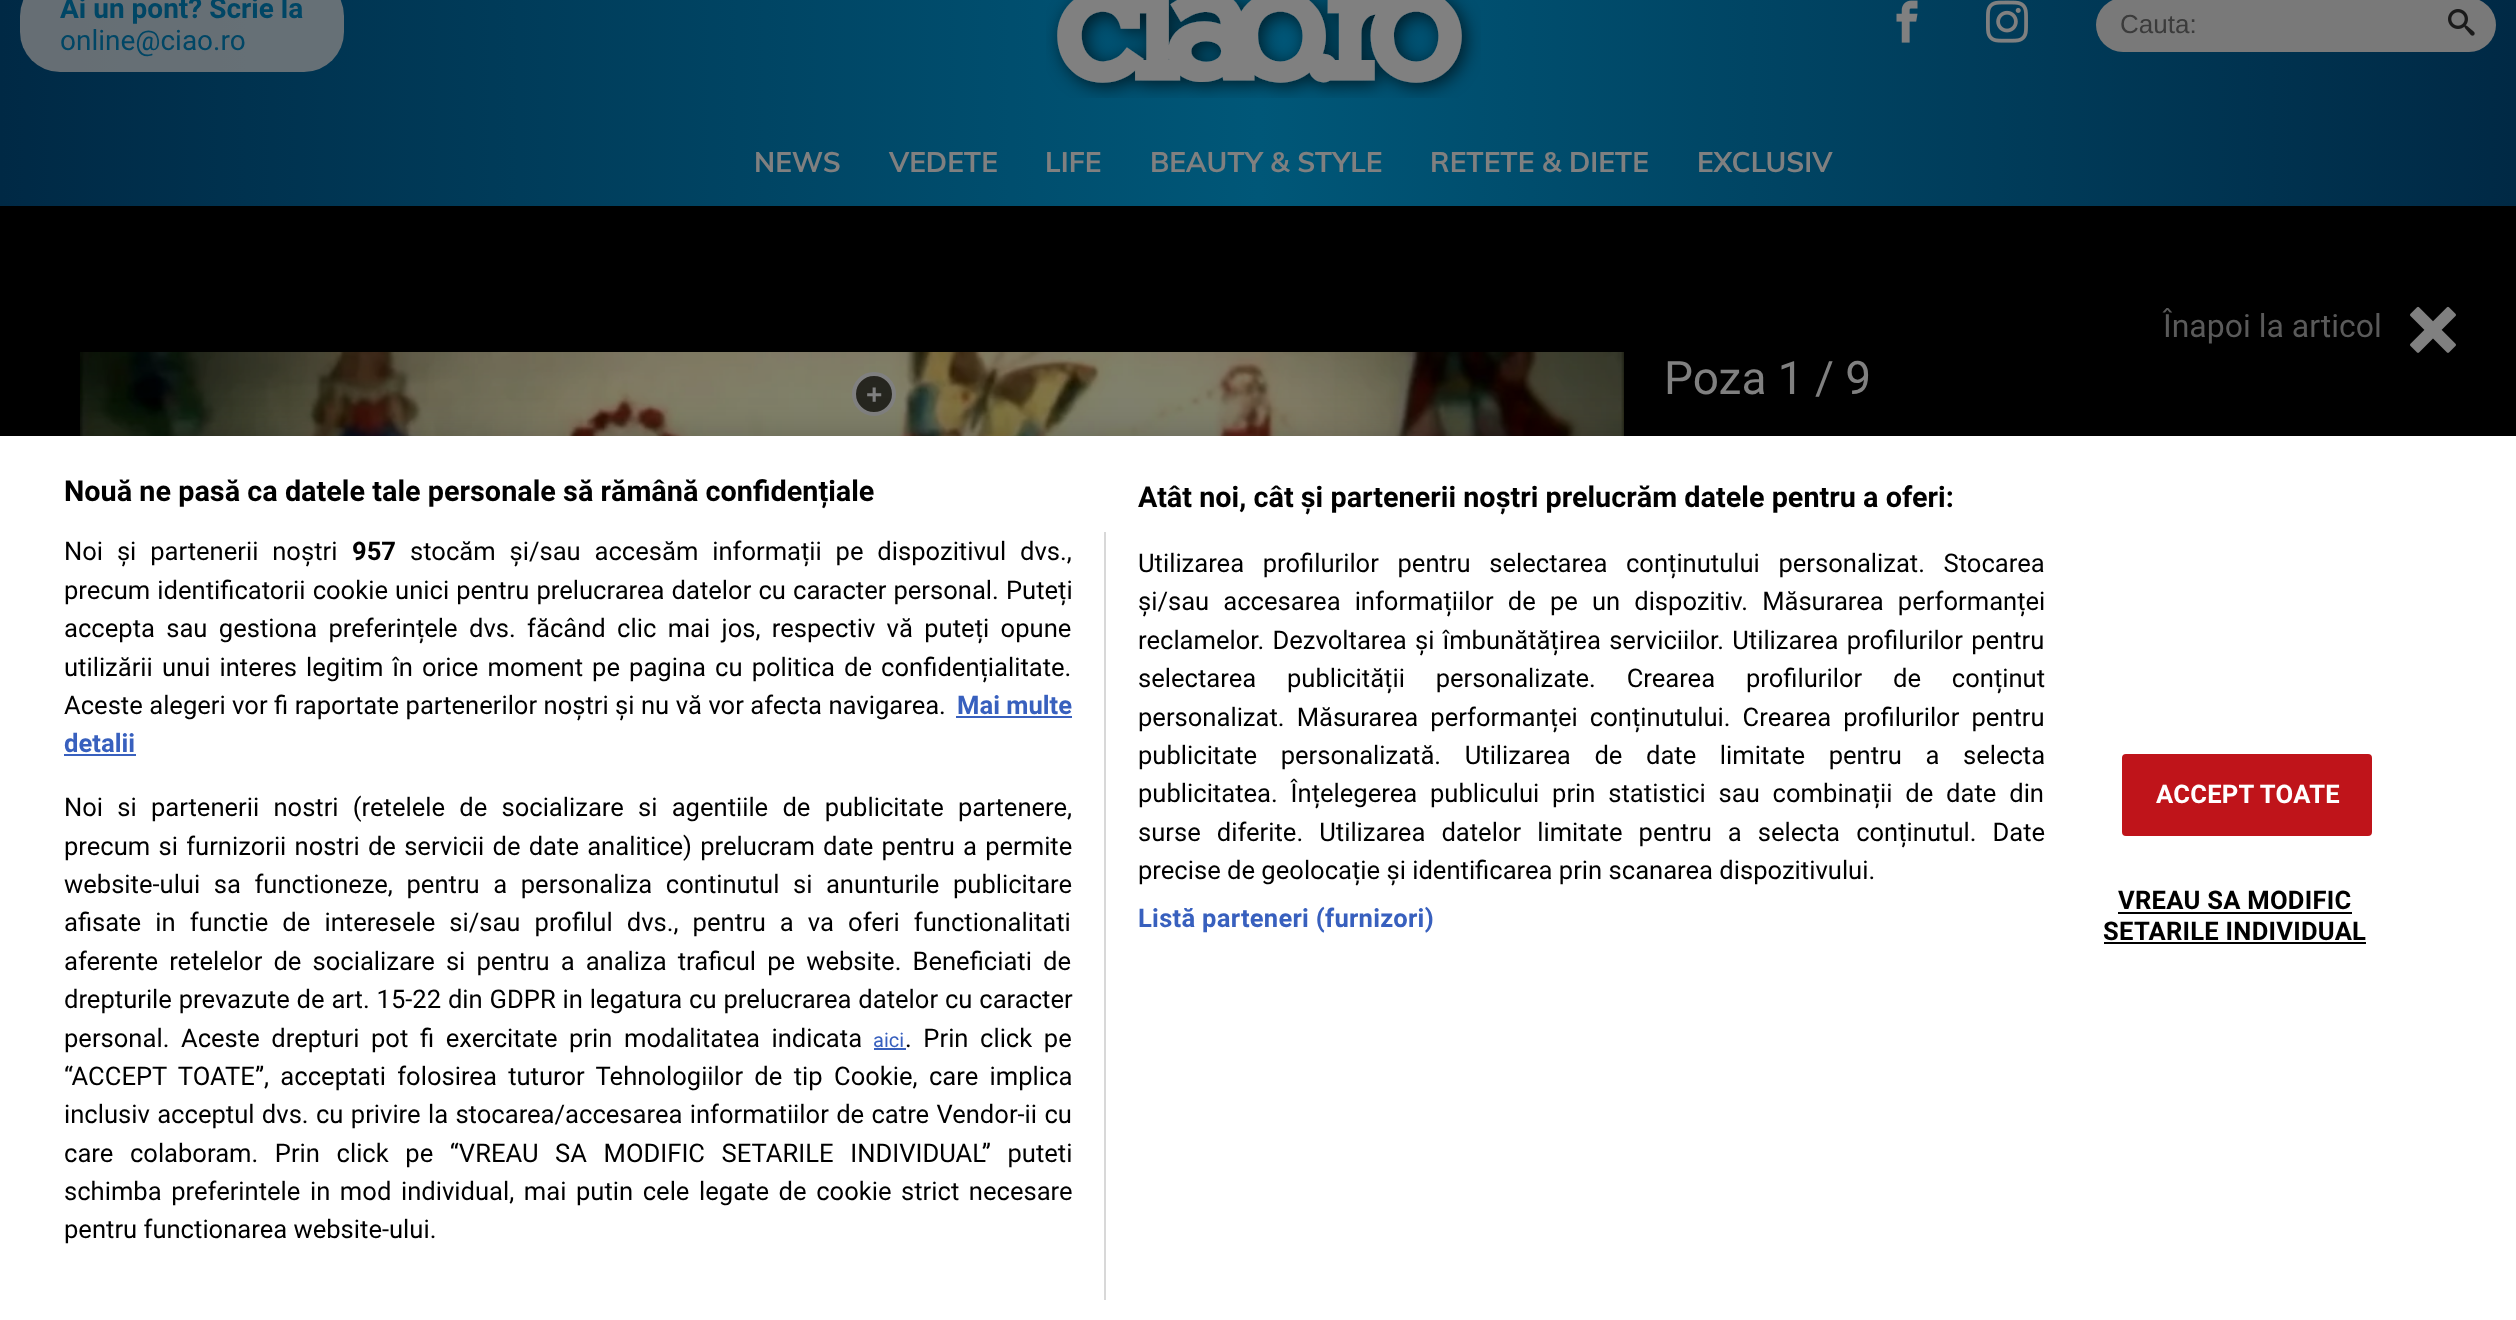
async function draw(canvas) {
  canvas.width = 2516;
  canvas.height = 1320;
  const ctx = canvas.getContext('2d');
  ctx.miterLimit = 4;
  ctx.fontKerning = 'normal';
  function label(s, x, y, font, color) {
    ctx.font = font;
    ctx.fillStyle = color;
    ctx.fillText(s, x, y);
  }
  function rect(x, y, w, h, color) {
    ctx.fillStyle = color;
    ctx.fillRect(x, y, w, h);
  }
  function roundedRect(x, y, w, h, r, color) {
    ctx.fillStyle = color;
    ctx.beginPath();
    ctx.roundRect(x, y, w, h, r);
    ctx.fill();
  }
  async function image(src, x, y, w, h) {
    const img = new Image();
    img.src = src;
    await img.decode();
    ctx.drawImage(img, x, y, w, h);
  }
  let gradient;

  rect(0, 0, 2516, 1320, '#fff');
  gradient = ctx.createLinearGradient(0, 65, 2516, 65);
  gradient.addColorStop(0, '#002945');
  gradient.addColorStop(0.5, '#005778');
  gradient.addColorStop(1, '#002945');
  ctx.fillStyle = gradient;
  ctx.fillRect(0, 0, 2516, 206);
  roundedRect(20, -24, 324, 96, 40, '#808080cc');
  label('Ai un pont? Scrie la', 60, 18, 'bold 28px Roboto', '#004665');
  label('online@ciao.ro', 60, 50, '28px Roboto', '#004665');
  await image('assets/img1.png', 1896, 0, 22, 43);
  await image('assets/img2.png', 1986, 0, 42, 43);
  roundedRect(2096, -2, 400, 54, 27, '#797979');
  label('Cauta:', 2120, 33, '26px Liberation Sans', '#3b3b3b');
  await image('assets/img3.png', 2448, 9, 27, 27);
  await image('assets/img4.png', 1046, 0, 435, 98);
  label('NEWS', 754, 172, 'bold 28px Muli', '#808080');
  label('VEDETE', 889, 172, 'bold 28px Muli', '#808080');
  label('LIFE', 1045, 172, 'bold 28px Muli', '#808080');
  label('BEAUTY & STYLE', 1150, 172, 'bold 28px Muli', '#808080');
  label('RETETE & DIETE', 1430, 172, 'bold 28px Muli', '#808080');
  label('EXCLUSIV', 1697, 172, 'bold 28px Muli', '#808080');
  rect(0, 206, 2516, 230, '#000');
  label('Înapoi la articol', 2163, 337, '32px Roboto', '#5a5a5a');
  await image('assets/img5.png', 2410, 306, 46, 47);
  await image('assets/img6.png', 80, 352, 1544, 84);
  ctx.fillStyle = '#000000b3';
  ctx.beginPath();
  ctx.arc(874, 394, 20, 0, 2 * Math.PI);
  ctx.fill();
  ctx.strokeStyle = '#808080';
  ctx.lineWidth = 4;
  ctx.stroke();
  label('+', 866, 404, 'bold 28px Liberation Sans', '#808080');
  label('Poza 1 / 9', 1664, 394, '46px Roboto', '#808080');
  ctx.fillStyle = '#00000033';
  ctx.filter = 'blur(18px)';
  ctx.beginPath();
  ctx.rect(0, 436, 2516, 884);
  ctx.fill();
  ctx.filter = 'none';
  rect(0, 436, 2516, 884, '#fff');
  label('Nouă ne pasă ca datele tale personale să rămână confidențiale', 64, 501, 'bold 28.8px Roboto', '#000');
  label('Atât noi, cât și partenerii noștri prelucrăm datele pentru a oferi:', 1138, 507, 'bold 28.8px Roboto', '#000');
  ctx.wordSpacing = '12.25px';
  label('Utilizarea profilurilor pentru selectarea conținutului personalizat. Stocarea', 1138, 572, '25.6px Roboto', '#000');
  ctx.wordSpacing = '7.75px';
  label('și/sau accesarea informațiilor de pe un dispozitiv. Măsurarea performanței', 1138, 610, '25.6px Roboto', '#000');
  ctx.wordSpacing = '2px';
  label('reclamelor. Dezvoltarea și îmbunătățirea serviciilor. Utilizarea profilurilor pentru', 1138, 649, '25.6px Roboto', '#000');
  ctx.wordSpacing = '24.5px';
  label('selectarea publicității personalizate. Crearea profilurilor de conținut', 1138, 687, '25.6px Roboto', '#000');
  ctx.wordSpacing = '5.75px';
  label('personalizat. Măsurarea performanței conținutului. Crearea profilurilor pentru', 1138, 726, '25.6px Roboto', '#000');
  ctx.wordSpacing = '17.25px';
  label('publicitate personalizată. Utilizarea de date limitate pentru a selecta', 1138, 764, '25.6px Roboto', '#000');
  ctx.wordSpacing = '6.5px';
  label('publicitatea. Înțelegerea publicului prin statistici sau combinații de date din', 1138, 802, '25.6px Roboto', '#000');
  ctx.wordSpacing = '9.75px';
  label('surse diferite. Utilizarea datelor limitate pentru a selecta conținutul. Date', 1138, 841, '25.6px Roboto', '#000');
  ctx.wordSpacing = '0px';
  label('precise de geolocație și identificarea prin scanarea dispozitivului.', 1138, 879, '25.6px Roboto', '#000');
  ctx.letterSpacing = '0.25px';
  label('Listă parteneri (furnizori)', 1138, 927, 'bold 25.6px Roboto', '#3860be');
  rect(1104, 532, 2, 768, '#d8d8d8');
  ctx.letterSpacing = '0px';
  ctx.wordSpacing = '7.5px';
  label('Noi și partenerii noștri', 64, 560, '25.6px Roboto', '#000');
  ctx.wordSpacing = '0px';
  label('957', 352, 560, 'bold 25.6px Roboto', '#000');
  ctx.wordSpacing = '7.5px';
  label('stocăm și/sau accesăm informații pe dispozitivul dvs.,', 410, 560, '25.6px Roboto', '#000');
  ctx.wordSpacing = '0.75px';
  label('precum identificatorii cookie unici pentru prelucrarea datelor cu caracter personal. Puteți', 64, 599, '25.6px Roboto', '#000');
  ctx.wordSpacing = '5px';
  label('accepta sau gestiona preferințele dvs. făcând clic mai jos, respectiv vă puteți opune', 64, 637, '25.6px Roboto', '#000');
  ctx.wordSpacing = '2.75px';
  label('utilizării unui interes legitim în orice moment pe pagina cu politica de confidențialitate.', 64, 676, '25.6px Roboto', '#000');
  ctx.wordSpacing = '0.1px';
  label('Aceste alegeri vor fi raportate partenerilor noștri și nu vă vor afecta navigarea.', 64, 714, '25.6px Roboto', '#000');
  ctx.wordSpacing = '0px';
  label('Mai multe', 957, 714, 'bold 25.6px Roboto', '#3860be');
  rect(956, 716, 116, 2, '#3860be');
  label('detalii', 64, 752, 'bold 25.6px Roboto', '#3860be');
  rect(64, 754, 72, 2, '#3860be');
  ctx.wordSpacing = '7.9px';
  label('Noi si partenerii nostri (retelele de socializare si agentiile de publicitate partenere,', 64, 816, '25.6px Roboto', '#000');
  ctx.wordSpacing = '1.9px';
  label('precum si furnizorii nostri de servicii de date analitice) prelucram date pentru a permite', 64, 855, '25.6px Roboto', '#000');
  ctx.wordSpacing = '7.25px';
  label('website-ului sa functioneze, pentru a personaliza continutul si anunturile publicitare', 64, 893, '25.6px Roboto', '#000');
  ctx.wordSpacing = '7.75px';
  label('afisate in functie de interesele si/sau profilul dvs., pentru a va oferi functionalitati', 64, 931, '25.6px Roboto', '#000');
  ctx.wordSpacing = '4.75px';
  label('aferente retelelor de socializare si pentru a analiza traficul pe website. Beneficiati de', 64, 970, '25.6px Roboto', '#000');
  ctx.wordSpacing = '0.5px';
  label('drepturile prevazute de art. 15-22 din GDPR in legatura cu prelucrarea datelor cu caracter', 64, 1008, '25.6px Roboto', '#000');
  ctx.wordSpacing = '5.25px';
  label('personal. Aceste drepturi pot fi exercitate prin modalitatea indicata', 64, 1047, '25.6px Roboto', '#000');
  ctx.wordSpacing = '0px';
  label('aici', 873, 1047, '20px Roboto', '#3860be');
  rect(874, 1048, 32, 2, '#3860be');
  ctx.wordSpacing = '5.25px';
  label('. Prin click pe', 905, 1047, '25.6px Roboto', '#000');
  ctx.wordSpacing = '5px';
  label('“ACCEPT TOATE”, acceptati folosirea tuturor Tehnologiilor de tip Cookie, care implica', 64, 1085, '25.6px Roboto', '#000');
  ctx.wordSpacing = '1px';
  label('inclusiv acceptul dvs. cu privire la stocarea/accesarea informatiilor de catre Vendor-ii cu', 64, 1123, '25.6px Roboto', '#000');
  ctx.wordSpacing = '10.25px';
  label('care colaboram. Prin click pe “VREAU SA MODIFIC SETARILE INDIVIDUAL” puteti', 64, 1162, '25.6px Roboto', '#000');
  ctx.wordSpacing = '3.25px';
  label('schimba preferintele in mod individual, mai putin cele legate de cookie strict necesare', 64, 1200, '25.6px Roboto', '#000');
  ctx.wordSpacing = '0px';
  label('pentru functionarea website-ului.', 64, 1238, '25.6px Roboto', '#000');
  ctx.fillStyle = '#bf141a';
  ctx.beginPath();
  ctx.roundRect(2123, 755, 248, 80, 3);
  ctx.fill();
  ctx.strokeStyle = '#bf141a';
  ctx.lineWidth = 2;
  ctx.stroke();
  ctx.letterSpacing = '0.25px';
  label('ACCEPT TOATE', 2156, 803, 'bold 25.6px Roboto', '#fff');
  label('VREAU SA MODIFIC', 2118, 909, 'bold 25.6px Roboto', '#000');
  rect(2118, 912, 234, 2, '#000');
  label('SETARILE INDIVIDUAL', 2103, 940, 'bold 25.6px Roboto', '#000');
  rect(2104, 942, 262, 2, '#000');
}

draw(document.querySelector('canvas'));
